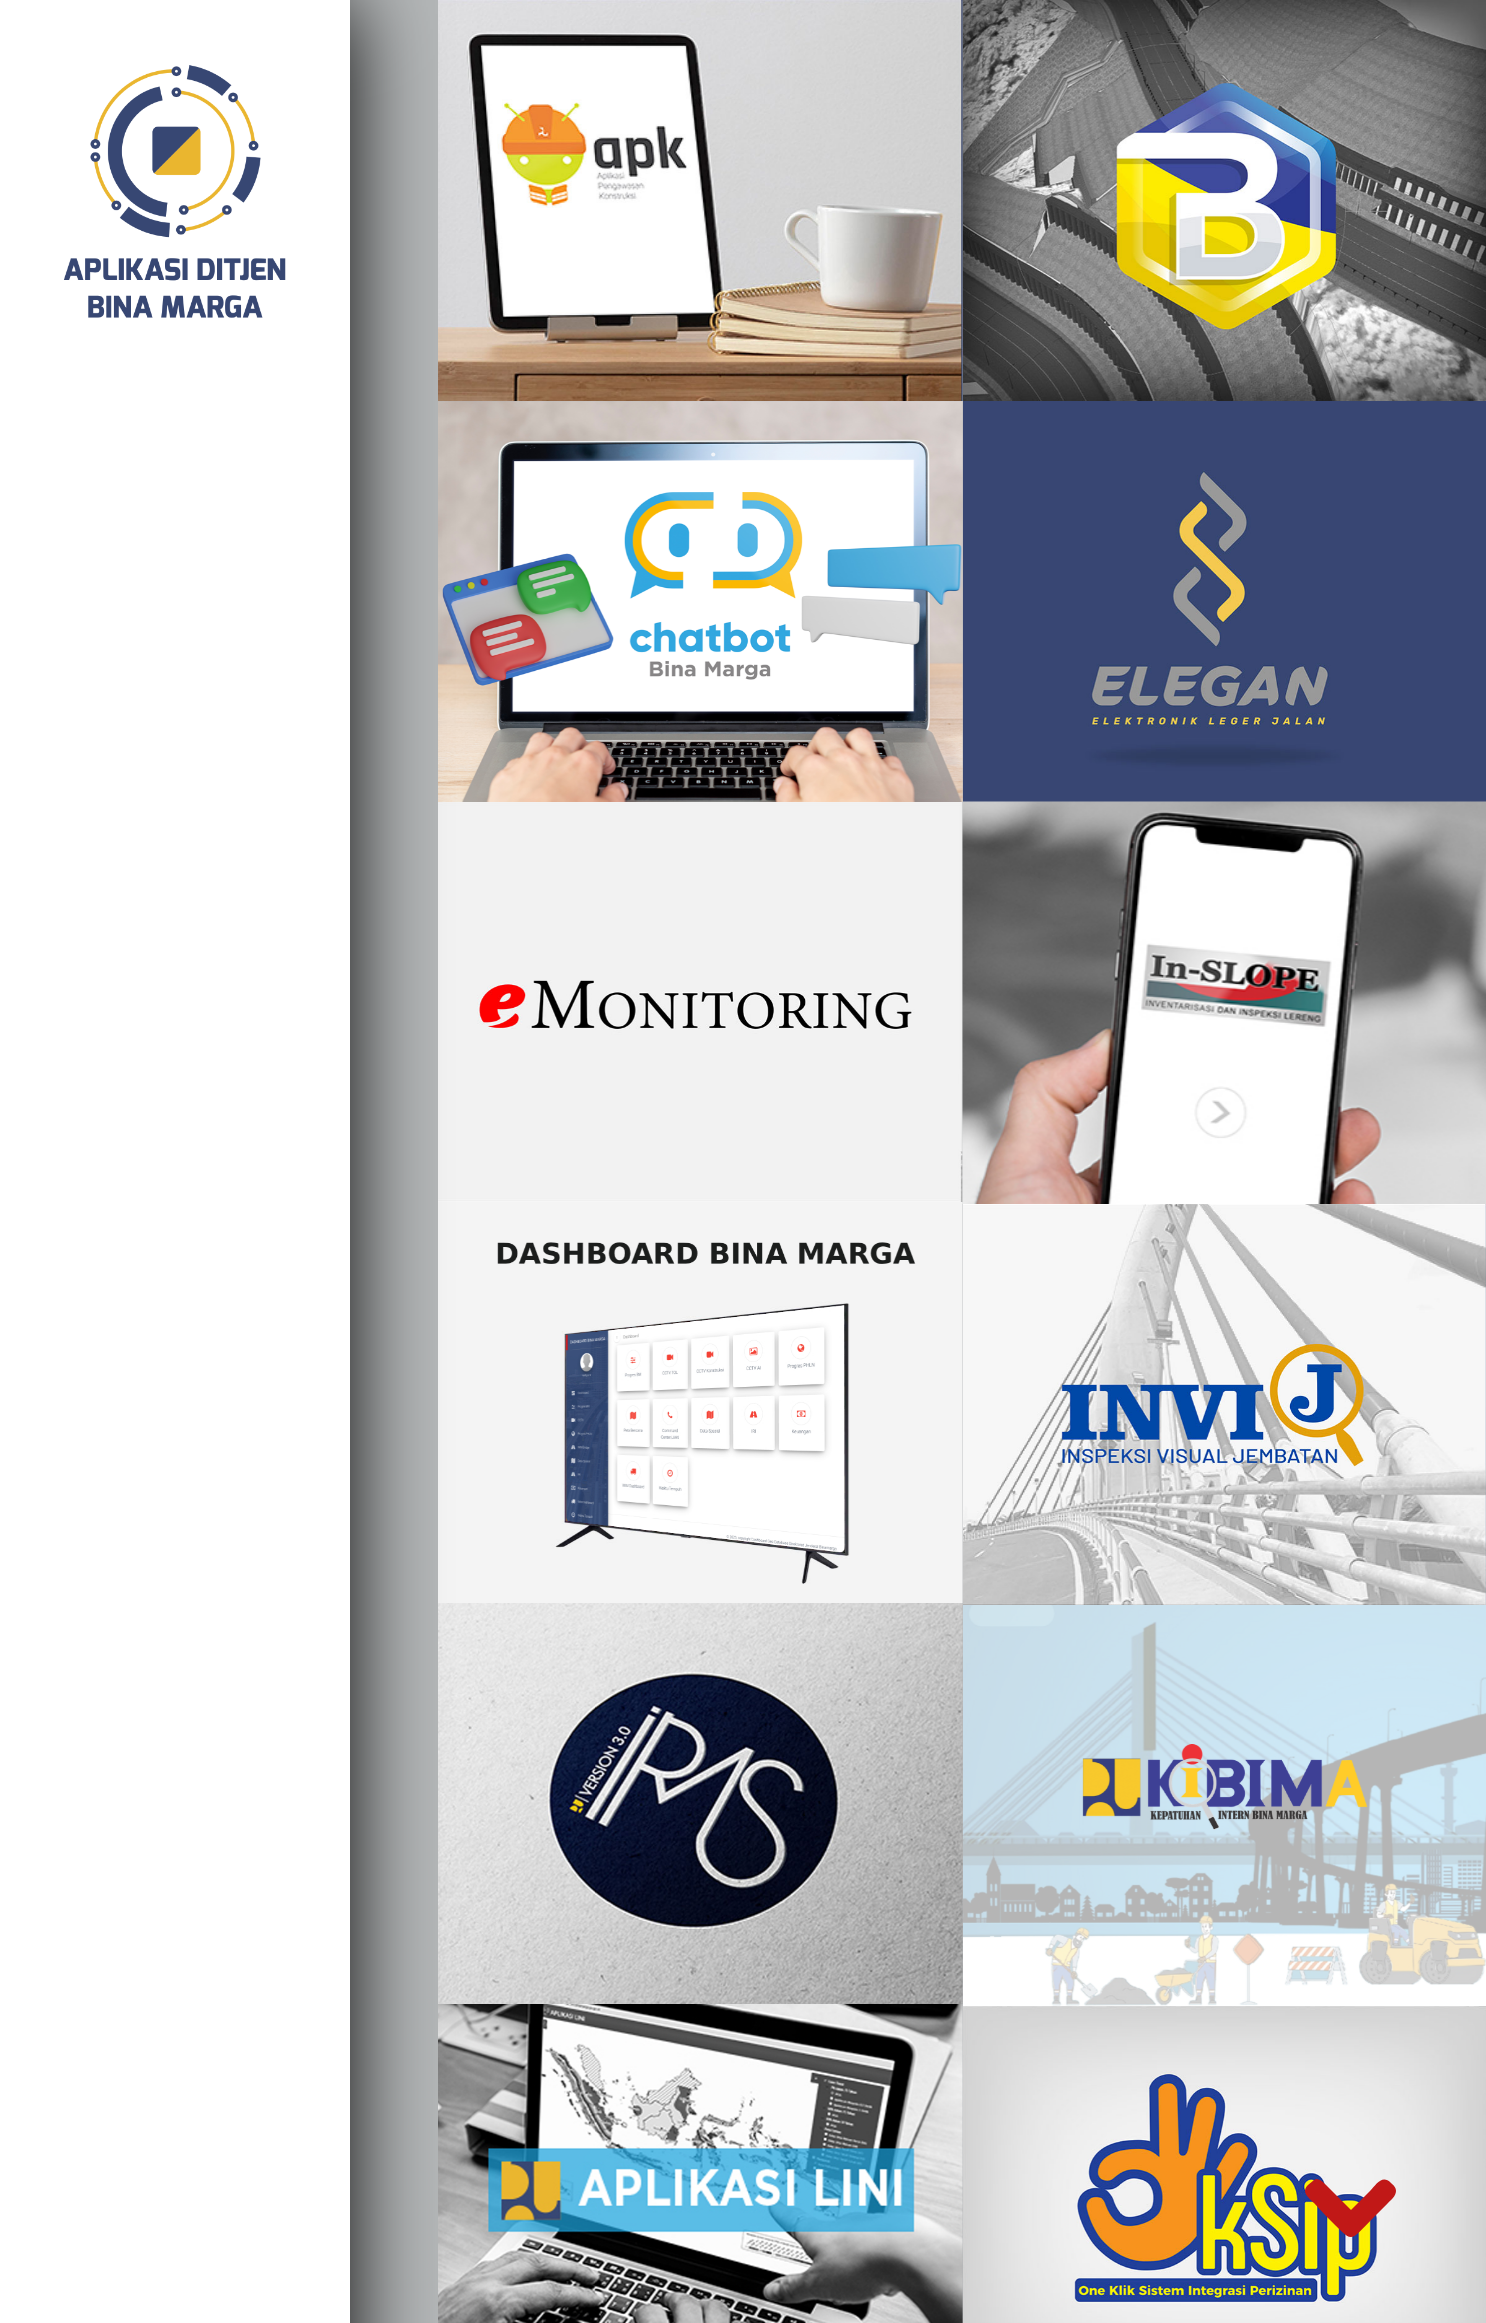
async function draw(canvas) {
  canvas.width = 1486;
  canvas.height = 2323;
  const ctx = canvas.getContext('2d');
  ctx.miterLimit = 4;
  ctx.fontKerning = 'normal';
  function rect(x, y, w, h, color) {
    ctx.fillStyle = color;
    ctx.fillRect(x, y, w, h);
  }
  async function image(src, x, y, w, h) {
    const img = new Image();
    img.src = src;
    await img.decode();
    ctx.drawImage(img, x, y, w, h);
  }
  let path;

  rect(0, 0, 1486, 2323, '#b4b7b8');
  await image('assets/img2.png', 438, 0, 525, 401);
  await image('assets/img4.png', 438, 401, 525, 401);
  await image('assets/img6.png', 438, 802, 525, 400);
  await image('assets/img5.png', 963, 401, 523, 401);
  await image('assets/img7.png', 962, 801, 524, 403);
  await image('assets/img8.png', 438, 1202, 525, 401);
  await image('assets/img10.png', 438, 1603, 525, 401);
  await image('assets/img12.png', 438, 2004, 525, 319);
  ctx.fillStyle = '#000';
  ctx.filter = 'blur(44px)';
  ctx.beginPath();
  ctx.rect(0, 0, 350, 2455);
  ctx.fill();
  ctx.filter = 'none';
  rect(0, 0, 350, 2323, '#fff');
  await image('assets/img1.png', 63, 65, 223, 253);
  await image('assets/img3.png', 963, 0, 523, 401);
  await image('assets/img9.png', 963, 1204, 523, 401);
  await image('assets/img11.png', 963, 1605, 523, 401);
  await image('assets/img13.png', 963, 2006, 523, 317);
  ctx.fillStyle = '#c11817';
  path = new Path2D('M1396 2191C1396 2196 1391 2200 1388 2203L1375 2216C1347 2244 1355 2244 1326 2216L1314 2203C1308 2197 1301 2192 1308 2185C1311 2183 1313 2180 1316 2179C1321 2179 1324 2183 1327 2186L1351 2210L1370 2191C1376 2185 1382 2174 1391 2183C1393 2185 1396 2187 1396 2191Z');
  ctx.fill(path);
}

draw(document.querySelector('canvas'));
